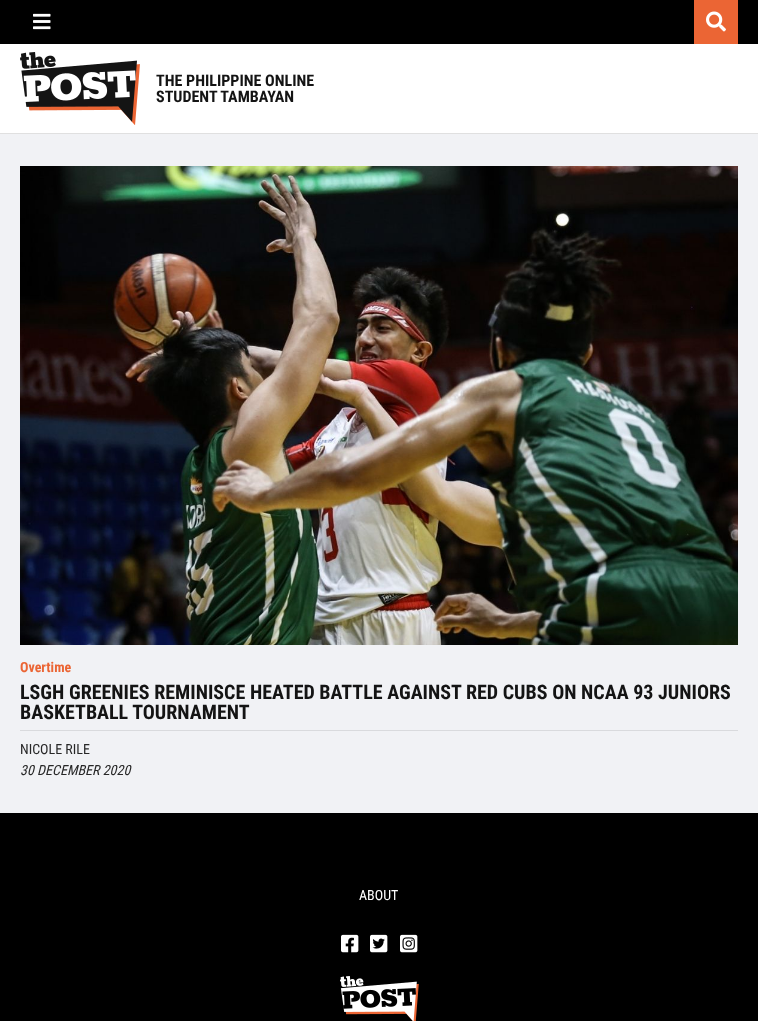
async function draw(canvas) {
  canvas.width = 758;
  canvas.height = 1021;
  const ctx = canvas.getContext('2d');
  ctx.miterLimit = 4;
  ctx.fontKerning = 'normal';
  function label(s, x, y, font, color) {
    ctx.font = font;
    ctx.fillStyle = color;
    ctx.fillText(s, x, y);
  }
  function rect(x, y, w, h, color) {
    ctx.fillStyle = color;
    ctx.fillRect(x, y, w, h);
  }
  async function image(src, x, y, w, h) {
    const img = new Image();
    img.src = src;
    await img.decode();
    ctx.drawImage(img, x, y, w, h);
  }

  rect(0, 0, 758, 1021, '#f1f2f5');
  rect(0, 0, 758, 44, '#000');
  await image('assets/img1.png', 33, 13, 18, 17);
  rect(694, 0, 44, 44, '#eb6534');
  await image('assets/img2.png', 706, 11, 20, 21);
  rect(0, 44, 758, 89, '#fff');
  rect(0, 133, 758, 1, '#e0e0e0');
  await image('assets/img3.png', 20, 52, 120, 73);
  label('THE PHILIPPINE ONLINE', 156, 86, 'bold 16px Roboto Condensed', '#141414');
  label('STUDENT TAMBAYAN', 156, 102, 'bold 16px Roboto Condensed', '#141414');
  await image('assets/img4.png', 20, 166, 718, 479);
  label('Overtime', 20, 672, 'bold 14px Roboto Condensed', '#eb6534');
  label('LSGH GREENIES REMINISCE HEATED BATTLE AGAINST RED CUBS ON NCAA 93 JUNIORS', 20, 699, 'bold 20px Roboto Condensed', '#141414');
  label('BASKETBALL TOURNAMENT', 20, 719, 'bold 20px Roboto Condensed', '#141414');
  rect(20, 730, 718, 1, '#d9dadd');
  label('NICOLE RILE', 20, 754, '14px Roboto Condensed', '#272727');
  label('30 DECEMBER 2020', 20, 775, 'italic 14px Roboto Condensed', '#272727');
  rect(0, 813, 758, 208, '#000');
  label('ABOUT', 359, 900, '14px Roboto Condensed', '#fff');
  await image('assets/img5.png', 341, 934, 18, 19);
  await image('assets/img6.png', 370, 934, 18, 19);
  await image('assets/img7.png', 400, 934, 18, 19);
  await image('assets/img8.png', 340, 976, 79, 45);
}

draw(document.querySelector('canvas'));
